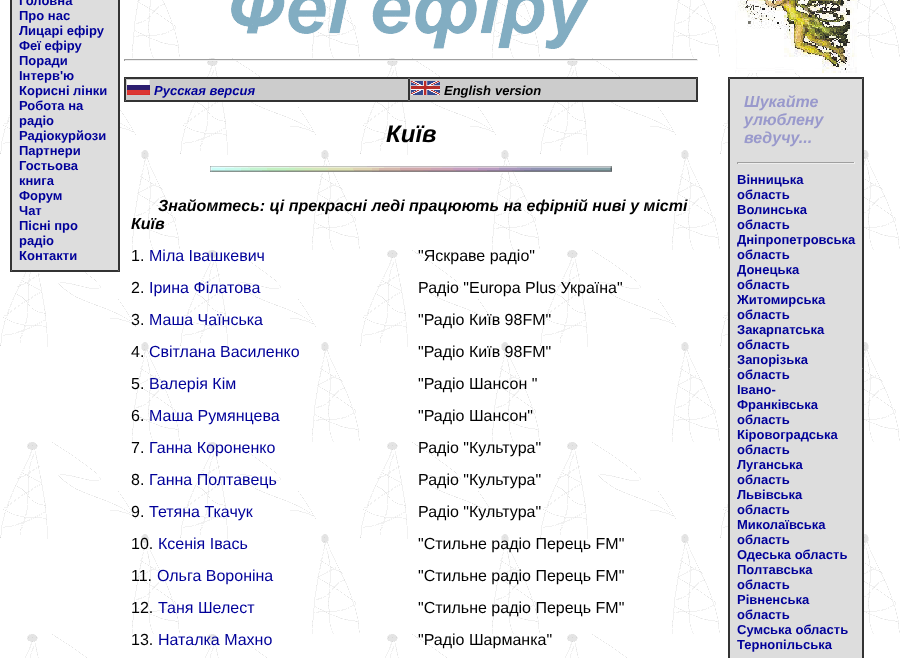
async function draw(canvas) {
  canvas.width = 900;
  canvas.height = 658;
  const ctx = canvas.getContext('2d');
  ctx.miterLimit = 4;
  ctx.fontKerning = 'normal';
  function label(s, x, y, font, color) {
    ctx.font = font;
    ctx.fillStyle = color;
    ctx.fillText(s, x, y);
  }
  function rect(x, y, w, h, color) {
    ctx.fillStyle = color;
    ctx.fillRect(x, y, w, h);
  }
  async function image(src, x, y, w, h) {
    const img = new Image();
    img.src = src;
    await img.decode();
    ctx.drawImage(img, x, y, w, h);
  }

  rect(0, 0, 900, 658, '#fff');
  await image('assets/img1.png', 0, 0, 900, 658);
  ctx.strokeStyle = '#333';
  ctx.strokeRect(10.5, -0.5, 109, 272);
  ctx.fillStyle = '#ddd';
  ctx.beginPath();
  ctx.rect(11.5, -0.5, 107, 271);
  ctx.fill();
  ctx.stroke();
  label('Головна', 19, 5, 'bold 13px Liberation Sans', '#009');
  label('Про нас', 19, 20, 'bold 13px Liberation Sans', '#009');
  label('Лицарі ефіру', 19, 35, 'bold 13px Liberation Sans', '#009');
  label('Феї ефіру', 19, 50, 'bold 13px Liberation Sans', '#009');
  label('Поради', 19, 65, 'bold 13px Liberation Sans', '#009');
  label('Інтерв\'ю', 19, 80, 'bold 13px Liberation Sans', '#009');
  label('Корисні лінки', 19, 95, 'bold 13px Liberation Sans', '#009');
  label('Робота на', 19, 110, 'bold 13px Liberation Sans', '#009');
  label('радіо', 19, 125, 'bold 13px Liberation Sans', '#009');
  label('Радіокурйози', 19, 140, 'bold 13px Liberation Sans', '#009');
  label('Партнери', 19, 155, 'bold 13px Liberation Sans', '#009');
  label('Гостьова', 19, 170, 'bold 13px Liberation Sans', '#009');
  label('книга', 19, 185, 'bold 13px Liberation Sans', '#009');
  label('Форум', 19, 200, 'bold 13px Liberation Sans', '#009');
  label('Чат', 19, 215, 'bold 13px Liberation Sans', '#009');
  label('Пісні про', 19, 230, 'bold 13px Liberation Sans', '#009');
  label('радіо', 19, 245, 'bold 13px Liberation Sans', '#009');
  label('Контакти', 19, 260, 'bold 13px Liberation Sans', '#009');
  await image('assets/img2.png', 231, 0, 358, 49);
  rect(124, 59, 574, 1, '#9f9f9f');
  rect(697, 59, 1, 2, '#eee');
  rect(124, 60, 574, 1, '#eee');
  rect(124, 59, 1, 2, '#9f9f9f');
  await image('assets/img3.png', 735, 0, 122, 73);
  ctx.strokeRect(124.5, 77.5, 573, 24);
  ctx.fillStyle = '#ccc';
  ctx.beginPath();
  ctx.rect(125.5, 78.5, 283, 22);
  ctx.fill();
  ctx.stroke();
  await image('assets/img4.png', 127, 80, 23, 15);
  label('Русская версия', 154, 95, 'italic bold 13px Liberation Sans', '#009');
  ctx.fillStyle = '#ccc';
  ctx.beginPath();
  ctx.rect(409.5, 78.5, 287, 22);
  ctx.fill();
  ctx.stroke();
  await image('assets/img5.png', 411, 81, 29, 14);
  label('English', 444, 95, 'italic bold 13px Liberation Sans', '#000');
  label('version', 495, 95, 'italic bold 13px Liberation Sans', '#000');
  label('Київ', 386, 142, 'italic bold 24px Liberation Sans', '#000');
  await image('assets/img6.png', 210, 166, 402, 6);
  label('Знайомтесь: ці прекрасні леді працюють на ефірній ниві у місті', 158, 211, 'italic bold 16px Liberation Sans', '#000');
  label('Київ', 131, 229, 'italic bold 16px Liberation Sans', '#000');
  label('1.', 131, 261, '16px Liberation Sans', '#000');
  label('Міла Івашкевич', 149, 261, '16px Liberation Sans', '#009');
  label('"Яскраве радіо"', 418, 261, '16px Liberation Sans', '#000');
  label('2.', 131, 293, '16px Liberation Sans', '#000');
  label('Ірина Філатова', 149, 293, '16px Liberation Sans', '#009');
  label('Радіо "Europa Plus Україна"', 418, 293, '16px Liberation Sans', '#000');
  label('3.', 131, 325, '16px Liberation Sans', '#000');
  label('Маша Чаїнська', 149, 325, '16px Liberation Sans', '#009');
  label('"Радіо Київ 98FM"', 418, 325, '16px Liberation Sans', '#000');
  label('4.', 131, 357, '16px Liberation Sans', '#000');
  label('Світлана Василенко', 149, 357, '16px Liberation Sans', '#009');
  label('"Радіо Київ 98FM"', 418, 357, '16px Liberation Sans', '#000');
  label('5.', 131, 389, '16px Liberation Sans', '#000');
  label('Валерія Кім', 149, 389, '16px Liberation Sans', '#009');
  label('"Радіо Шансон "', 418, 389, '16px Liberation Sans', '#000');
  label('6.', 131, 421, '16px Liberation Sans', '#000');
  label('Маша Румянцева', 149, 421, '16px Liberation Sans', '#009');
  label('"Радіо Шансон"', 418, 421, '16px Liberation Sans', '#000');
  label('7.', 131, 453, '16px Liberation Sans', '#000');
  label('Ганна Короненко', 149, 453, '16px Liberation Sans', '#009');
  label('Радіо "Культура"', 418, 453, '16px Liberation Sans', '#000');
  label('8.', 131, 485, '16px Liberation Sans', '#000');
  label('Ганна Полтавець', 149, 485, '16px Liberation Sans', '#009');
  label('Радіо "Культура"', 418, 485, '16px Liberation Sans', '#000');
  label('9.', 131, 517, '16px Liberation Sans', '#000');
  label('Тетяна Ткачук', 149, 517, '16px Liberation Sans', '#009');
  label('Радіо "Культура"', 418, 517, '16px Liberation Sans', '#000');
  label('10.', 131, 549, '16px Liberation Sans', '#000');
  label('Ксенія Івась', 158, 549, '16px Liberation Sans', '#009');
  label('"Стильне радіо Перець FM"', 418, 549, '16px Liberation Sans', '#000');
  label('11.', 131, 581, '16px Liberation Sans', '#000');
  label('Ольга Вороніна', 157, 581, '16px Liberation Sans', '#009');
  label('"Стильне радіо Перець FM"', 418, 581, '16px Liberation Sans', '#000');
  label('12.', 131, 613, '16px Liberation Sans', '#000');
  label('Таня Шелест', 158, 613, '16px Liberation Sans', '#009');
  label('"Стильне радіо Перець FM"', 418, 613, '16px Liberation Sans', '#000');
  label('13.', 131, 645, '16px Liberation Sans', '#000');
  label('Наталка Махно', 158, 645, '16px Liberation Sans', '#009');
  label('"Радіо Шарманка"', 418, 645, '16px Liberation Sans', '#000');
  ctx.strokeRect(728.5, 77.5, 135, 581);
  ctx.fillStyle = '#ddd';
  ctx.beginPath();
  ctx.rect(729.5, 78.5, 133, 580);
  ctx.fill();
  ctx.stroke();
  label('Шукайте', 744, 107, 'italic bold 16px Liberation Sans', '#99c');
  label('улюблену', 744, 125, 'italic bold 16px Liberation Sans', '#99c');
  label('ведучу...', 744, 143, 'italic bold 16px Liberation Sans', '#99c');
  rect(737, 162, 118, 1, '#9f9f9f');
  rect(854, 162, 1, 2, '#eee');
  rect(737, 163, 118, 1, '#eee');
  rect(737, 162, 1, 2, '#9f9f9f');
  label('Вінницька', 737, 184, 'bold 13px Liberation Sans', '#009');
  label('область', 737, 199, 'bold 13px Liberation Sans', '#009');
  label('Волинська', 737, 214, 'bold 13px Liberation Sans', '#009');
  label('область', 737, 229, 'bold 13px Liberation Sans', '#009');
  label('Дніпропетровська', 737, 244, 'bold 13px Liberation Sans', '#009');
  label('область', 737, 259, 'bold 13px Liberation Sans', '#009');
  label('Донецька', 737, 274, 'bold 13px Liberation Sans', '#009');
  label('область', 737, 289, 'bold 13px Liberation Sans', '#009');
  label('Житомирська', 737, 304, 'bold 13px Liberation Sans', '#009');
  label('область', 737, 319, 'bold 13px Liberation Sans', '#009');
  label('Закарпатська', 737, 334, 'bold 13px Liberation Sans', '#009');
  label('область', 737, 349, 'bold 13px Liberation Sans', '#009');
  label('Запорізька', 737, 364, 'bold 13px Liberation Sans', '#009');
  label('область', 737, 379, 'bold 13px Liberation Sans', '#009');
  label('Івано-', 737, 394, 'bold 13px Liberation Sans', '#009');
  label('Франківська', 737, 409, 'bold 13px Liberation Sans', '#009');
  label('область', 737, 424, 'bold 13px Liberation Sans', '#009');
  label('Кіровоградська', 737, 439, 'bold 13px Liberation Sans', '#009');
  label('область', 737, 454, 'bold 13px Liberation Sans', '#009');
  label('Луганська', 737, 469, 'bold 13px Liberation Sans', '#009');
  label('область', 737, 484, 'bold 13px Liberation Sans', '#009');
  label('Львівська', 737, 499, 'bold 13px Liberation Sans', '#009');
  label('область', 737, 514, 'bold 13px Liberation Sans', '#009');
  label('Миколаївська', 737, 529, 'bold 13px Liberation Sans', '#009');
  label('область', 737, 544, 'bold 13px Liberation Sans', '#009');
  label('Одеська область', 737, 559, 'bold 13px Liberation Sans', '#009');
  label('Полтавська', 737, 574, 'bold 13px Liberation Sans', '#009');
  label('область', 737, 589, 'bold 13px Liberation Sans', '#009');
  label('Рівненська', 737, 604, 'bold 13px Liberation Sans', '#009');
  label('область', 737, 619, 'bold 13px Liberation Sans', '#009');
  label('Сумська область', 737, 634, 'bold 13px Liberation Sans', '#009');
  label('Тернопільська', 737, 649, 'bold 13px Liberation Sans', '#009');
}

draw(document.querySelector('canvas'));
